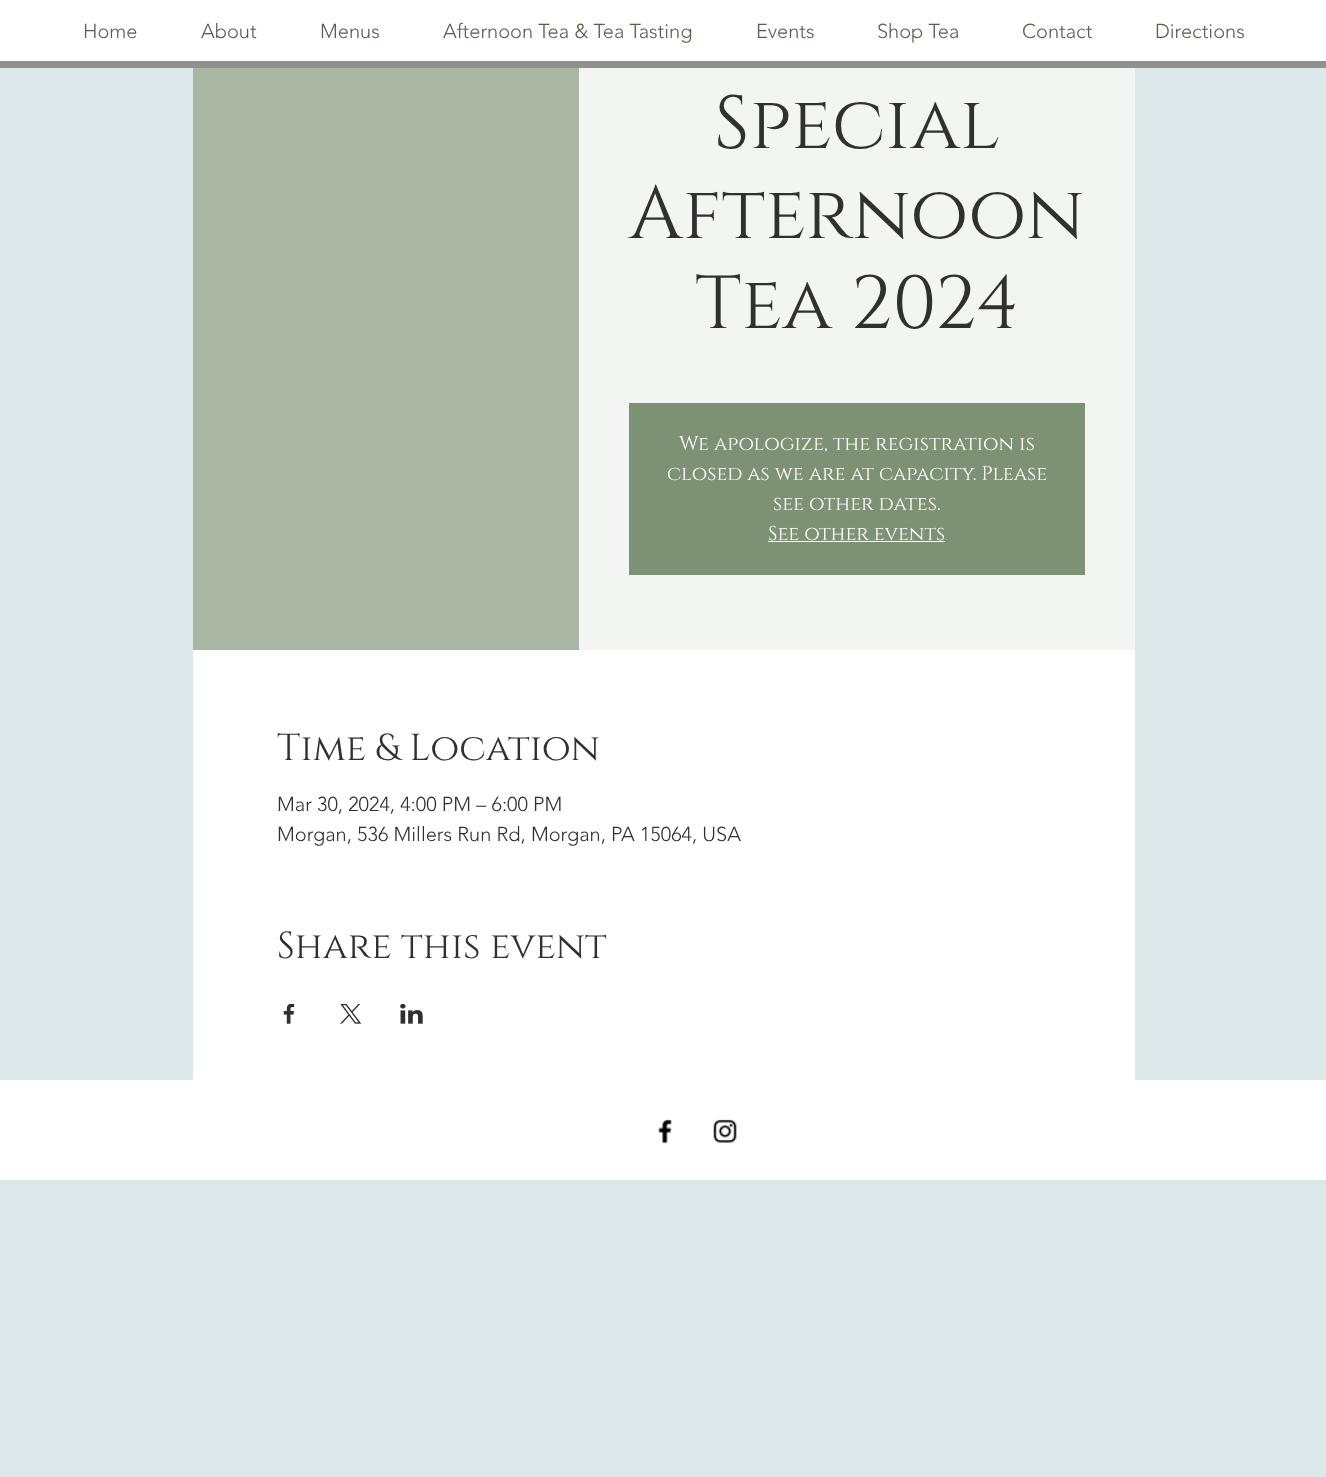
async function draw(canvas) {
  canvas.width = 1326;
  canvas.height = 1477;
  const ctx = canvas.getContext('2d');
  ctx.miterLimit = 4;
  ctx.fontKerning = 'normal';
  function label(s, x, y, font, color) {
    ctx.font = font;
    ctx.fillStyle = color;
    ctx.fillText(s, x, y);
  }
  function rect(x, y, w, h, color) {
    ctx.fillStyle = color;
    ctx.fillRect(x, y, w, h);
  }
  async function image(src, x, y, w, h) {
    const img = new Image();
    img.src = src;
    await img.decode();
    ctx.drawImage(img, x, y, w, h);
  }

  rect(0, 0, 1326, 1477, '#dde8eb');
  rect(0, 61, 1326, 7, '#909090');
  rect(0, 0, 1326, 61, '#fff');
  label('Home', 83, 38, '300 20px "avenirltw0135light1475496"', '#53614d');
  label('About', 201, 38, '300 20px "avenirltw0135light1475496"', '#53614d');
  label('Menus', 320, 38, '300 20px "avenirltw0135light1475496"', '#53614d');
  label('Afternoon Tea & Tea Tasting', 443, 38, '300 20px "avenirltw0135light1475496"', '#53614d');
  label('Events', 756, 38, '300 20px "avenirltw0135light1475496"', '#53614d');
  label('Shop Tea', 877, 38, '300 20px "avenirltw0135light1475496"', '#53614d');
  label('Contact', 1022, 38, '300 20px "avenirltw0135light1475496"', '#53614d');
  label('Directions', 1155, 38, '300 20px "avenirltw0135light1475496"', '#53614d');
  rect(193, 68, 386, 582, '#a9b6a4');
  rect(579, 68, 556, 582, '#f3f5f2');
  label('Special', 714, 148, '75px Cinzel', '#303030');
  label('Afternoon', 629, 238, '75px Cinzel', '#303030');
  label('Tea 2024', 695, 328, '75px Cinzel', '#303030');
  rect(629, 403, 456, 172, '#7d9174');
  label('We apologize, the registration is', 679, 450, '20px Cinzel', '#fff');
  label('closed as we are at capacity. Please', 667, 480, '20px Cinzel', '#fff');
  label('see other dates.', 773, 510, '20px Cinzel', '#fff');
  label('See other events', 768, 540, '20px Cinzel', '#fff');
  rect(768, 541, 177, 1, '#fff');
  rect(193, 650, 942, 430, '#fff');
  label('Time & Location', 277, 760, '37.5px Cinzel', '#303030');
  label('Mar 30, 2024, 4:00 PM – 6:00 PM', 277, 811, '300 20px "avenirltw0135light1475496"', '#303030');
  label('Morgan, 536 Millers Run Rd, Morgan, PA 15064, USA', 277, 841, '300 20px "avenirltw0135light1475496"', '#303030');
  label('Share this event', 277, 958, '37.5px Cinzel', '#303030');
  await image('assets/img1.png', 283, 1004, 12, 20);
  await image('assets/img2.png', 340, 1004, 22, 20);
  await image('assets/img3.png', 400, 1004, 23, 20);
  rect(0, 1080, 1326, 100, '#fff');
  await image('assets/img4.png', 658, 1119, 14, 25);
  await image('assets/img5.png', 713, 1119, 24, 24);
}

draw(document.querySelector('canvas'));
